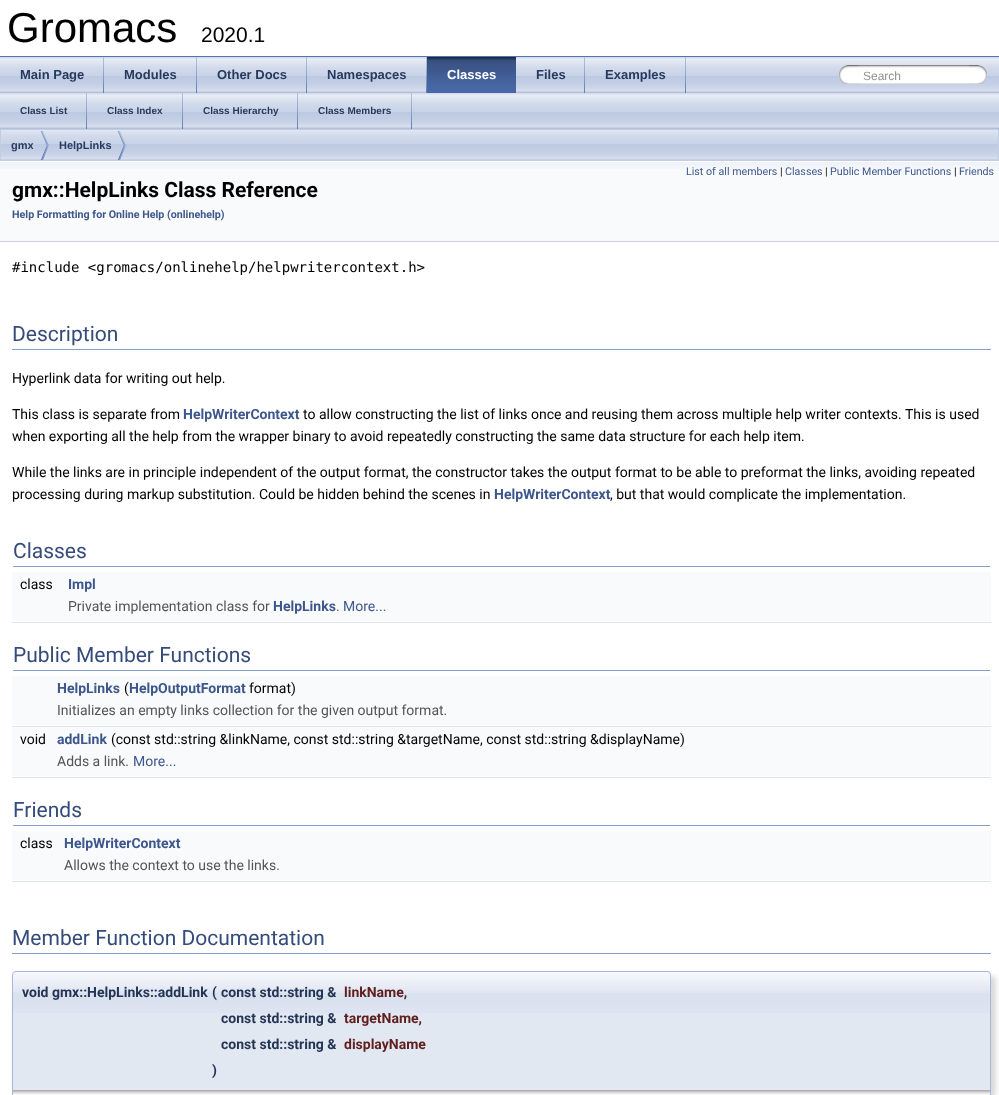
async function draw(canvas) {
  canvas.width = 999;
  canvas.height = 1095;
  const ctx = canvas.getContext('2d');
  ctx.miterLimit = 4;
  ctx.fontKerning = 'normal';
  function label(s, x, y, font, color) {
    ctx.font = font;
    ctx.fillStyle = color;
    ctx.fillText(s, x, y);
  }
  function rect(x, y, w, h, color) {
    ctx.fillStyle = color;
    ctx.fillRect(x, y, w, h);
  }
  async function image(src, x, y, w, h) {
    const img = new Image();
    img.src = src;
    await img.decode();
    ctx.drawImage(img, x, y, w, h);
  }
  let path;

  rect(0, 0, 999, 1095, '#fff');
  rect(0, 56, 999, 1, '#5373b4');
  label('Gromacs', 7, 42, '42px Liberation Sans', '#000');
  label('2020.1', 201, 42, '21px Liberation Sans', '#000');
  await image('assets/img1.png', 0, 57, 999, 36);
  await image('assets/img2.png', 103, 57, 1, 36);
  label('Main Page', 20, 79, 'bold 13px Liberation Sans', '#283a5d');
  await image('assets/img2.png', 196, 57, 1, 36);
  label('Modules', 124, 79, 'bold 13px Liberation Sans', '#283a5d');
  await image('assets/img2.png', 306, 57, 1, 36);
  label('Other Docs', 217, 79, 'bold 13px Liberation Sans', '#283a5d');
  await image('assets/img2.png', 426, 57, 1, 36);
  label('Namespaces', 327, 79, 'bold 13px Liberation Sans', '#283a5d');
  await image('assets/img3.png', 427, 57, 89, 36);
  label('Classes', 447, 79, 'bold 13px Liberation Sans', '#fff');
  await image('assets/img2.png', 584, 57, 1, 36);
  label('Files', 536, 79, 'bold 13px Liberation Sans', '#283a5d');
  await image('assets/img2.png', 685, 57, 1, 36);
  label('Examples', 605, 79, 'bold 13px Liberation Sans', '#283a5d');
  await image('assets/img4.png', 839, 65, 20, 19);
  await image('assets/img5.png', 859, 65, 110, 19);
  label('Search', 863, 80, '12px Liberation Sans', '#909090');
  await image('assets/img6.png', 969, 65, 18, 19);
  await image('assets/img1.png', 0, 93, 999, 36);
  await image('assets/img2.png', 86, 93, 1, 36);
  label('Class List', 20, 114, 'bold 10px Liberation Sans', '#283a5d');
  await image('assets/img2.png', 182, 93, 1, 36);
  label('Class Index', 107, 114, 'bold 10px Liberation Sans', '#283a5d');
  await image('assets/img2.png', 297, 93, 1, 36);
  label('Class Hierarchy', 203, 114, 'bold 10px Liberation Sans', '#283a5d');
  await image('assets/img2.png', 411, 93, 1, 36);
  label('Class Members', 318, 114, 'bold 10px Liberation Sans', '#283a5d');
  await image('assets/img7.png', 1, 130, 997, 30);
  ctx.strokeStyle = '#c2cde4';
  ctx.strokeRect(0.5, 129.5, 998, 31);
  await image('assets/img8.png', 41, 131, 8, 29);
  label('gmx', 11, 149, 'bold 11px Liberation Sans', '#283a5d');
  await image('assets/img8.png', 118, 131, 8, 29);
  label('HelpLinks', 59, 149, 'bold 11px Liberation Sans', '#283a5d');
  rect(0, 169, 999, 72, '#f9fafc');
  await image('assets/img9.png', 0, 161, 999, 8);
  rect(0, 241, 999, 1, '#c4cfe5');
  label('List of all members', 686, 175, '10.7px Roboto', '#3d578c');
  label('|', 780, 175, '10.7px Roboto', '#000');
  label('Classes', 785, 175, '10.7px Roboto', '#3d578c');
  label('|', 825, 175, '10.7px Roboto', '#000');
  label('Public Member Functions', 830, 175, '10.7px Roboto', '#3d578c');
  label('|', 954, 175, '10.7px Roboto', '#000');
  label('Friends', 959, 175, '10.7px Roboto', '#3d578c');
  label('gmx::HelpLinks Class Reference', 12, 197, 'bold 21px Roboto', '#000');
  label('Help Formatting for Online Help (onlinehelp)', 12, 218, 'bold 10.7px Roboto', '#3d578c');
  label('#include <gromacs/onlinehelp/helpwritercontext.h>', 12, 272, '14px DejaVu Sans Mono', '#000');
  rect(12, 349, 979, 1, '#879ecb');
  label('Description', 12, 341, '21px Roboto', '#354c7b');
  label('Hyperlink data for writing out help.', 12, 383, '14px Roboto', '#000');
  label('This class is separate from', 12, 419, '14px Roboto', '#000');
  label('HelpWriterContext', 183, 419, 'bold 14px Roboto', '#3d578c');
  label('to allow constructing the list of links once and reusing them across multiple help writer contexts. This is used', 303, 419, '14px Roboto', '#000');
  label('when exporting all the help from the wrapper binary to avoid repeatedly constructing the same data structure for each help item.', 12, 441, '14px Roboto', '#000');
  label('While the links are in principle independent of the output format, the constructor takes the output format to be able to preformat the links, avoiding repeated', 12, 477, '14px Roboto', '#000');
  label('processing during markup substitution. Could be hidden behind the scenes in', 12, 499, '14px Roboto', '#000');
  label('HelpWriterContext', 494, 499, 'bold 14px Roboto', '#3d578c');
  label(', but that would complicate the implementation.', 610, 499, '14px Roboto', '#000');
  rect(13, 566, 977, 1, '#879ecb');
  label('Classes', 13, 558, '21px Roboto', '#354c7b');
  rect(12, 572, 979, 23, '#f9fafc');
  label('class', 20, 589, '14px Roboto', '#000');
  label('Impl', 68, 589, 'bold 14px Roboto', '#3d578c');
  rect(12, 595, 979, 26, '#f9fafc');
  label('Private implementation class for', 68, 611, '14px Roboto', '#555');
  label('HelpLinks', 273, 611, 'bold 14px Roboto', '#3d578c');
  label('.', 336, 611, '14px Roboto', '#555');
  label('More...', 343, 611, '14px Roboto', '#3d578c');
  rect(12, 622, 979, 1, '#dee4f0');
  rect(13, 670, 977, 1, '#879ecb');
  label('Public Member Functions', 13, 662, '21px Roboto', '#354c7b');
  rect(12, 676, 979, 23, '#f9fafc');
  label('HelpLinks', 57, 693, 'bold 14px Roboto', '#3d578c');
  label('(', 124, 693, '14px Roboto', '#000');
  label('HelpOutputFormat', 129, 693, 'bold 14px Roboto', '#3d578c');
  label('format)', 249, 693, '14px Roboto', '#000');
  rect(12, 699, 979, 26, '#f9fafc');
  label('Initializes an empty links collection for the given output format.', 57, 715, '14px Roboto', '#555');
  rect(12, 726, 979, 1, '#dee4f0');
  rect(12, 727, 979, 23, '#f9fafc');
  label('void', 20, 744, '14px Roboto', '#000');
  label('addLink', 57, 744, 'bold 14px Roboto', '#3d578c');
  label('(const std::string &linkName, const std::string &targetName, const std::string &displayName)', 111, 744, '14px Roboto', '#000');
  rect(12, 750, 979, 26, '#f9fafc');
  label('Adds a link.', 57, 766, '14px Roboto', '#555');
  label('More...', 133, 766, '14px Roboto', '#3d578c');
  rect(12, 777, 979, 1, '#dee4f0');
  rect(13, 825, 977, 1, '#879ecb');
  label('Friends', 13, 817, '21px Roboto', '#354c7b');
  rect(12, 831, 979, 23, '#f9fafc');
  label('class', 20, 848, '14px Roboto', '#000');
  label('HelpWriterContext', 64, 848, 'bold 14px Roboto', '#3d578c');
  rect(12, 854, 979, 26, '#f9fafc');
  label('Allows the context to use the links.', 64, 870, '14px Roboto', '#555');
  rect(12, 881, 979, 1, '#dee4f0');
  rect(12, 953, 979, 1, '#879ecb');
  label('Member Function Documentation', 12, 945, '21px Roboto', '#354c7b');
  ctx.fillStyle = '#00000026';
  ctx.filter = 'blur(2.5px)';
  ctx.beginPath();
  ctx.roundRect(17, 976, 979, 119, 4);
  ctx.fill();
  ctx.filter = 'none';
  ctx.fillStyle = '#e2e8f2';
  ctx.beginPath();
  ctx.roundRect(12, 971, 979, 119, [4, 4, 0, 0]);
  ctx.fill();
  await image('assets/img10.png', 12, 972, 979, 41);
  ctx.fillStyle = '#a8b8d9';
  path = new Path2D('M16 971H987C989 971 991 973 991 975V1090H12V975C12 973 14 971 16 971ZM16 972H987C989 972 990 973 990 975V1090H13V975C13 973 14 972 16 972Z');
  ctx.fill(path, 'evenodd');
  label('void gmx::HelpLinks::addLink', 22, 997, 'bold 14px Roboto', '#253555');
  label('(', 212, 997, 'bold 14px Roboto', '#253555');
  label('const std::string &', 221, 997, 'bold 14px Roboto', '#253555');
  label('linkName,', 344, 997, 'bold 14px Roboto', '#602020');
  label('const std::string &', 221, 1023, 'bold 14px Roboto', '#253555');
  label('targetName,', 344, 1023, 'bold 14px Roboto', '#602020');
  label('const std::string &', 221, 1049, 'bold 14px Roboto', '#253555');
  label('displayName', 344, 1049, 'bold 14px Roboto', '#602020');
  label(')', 212, 1075, 'bold 14px Roboto', '#253555');
  ctx.fillStyle = '#00000026';
  ctx.filter = 'blur(2.5px)';
  ctx.beginPath();
  ctx.roundRect(17, 1095, 979, 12, 4);
  ctx.fill();
  ctx.filter = 'none';
  rect(12, 1090, 979, 5, '#fff');
  await image('assets/img11.png', 13, 1090, 977, 5);
  ctx.fillStyle = '#a8b8d9';
  path = new Path2D('M12 1090H991V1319C991 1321 989 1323 987 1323H16C14 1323 12 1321 12 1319ZM13 1090H990V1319C990 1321 989 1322 987 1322H16C14 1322 13 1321 13 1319Z');
  ctx.fill(path, 'evenodd');
}

draw(document.querySelector('canvas'));
